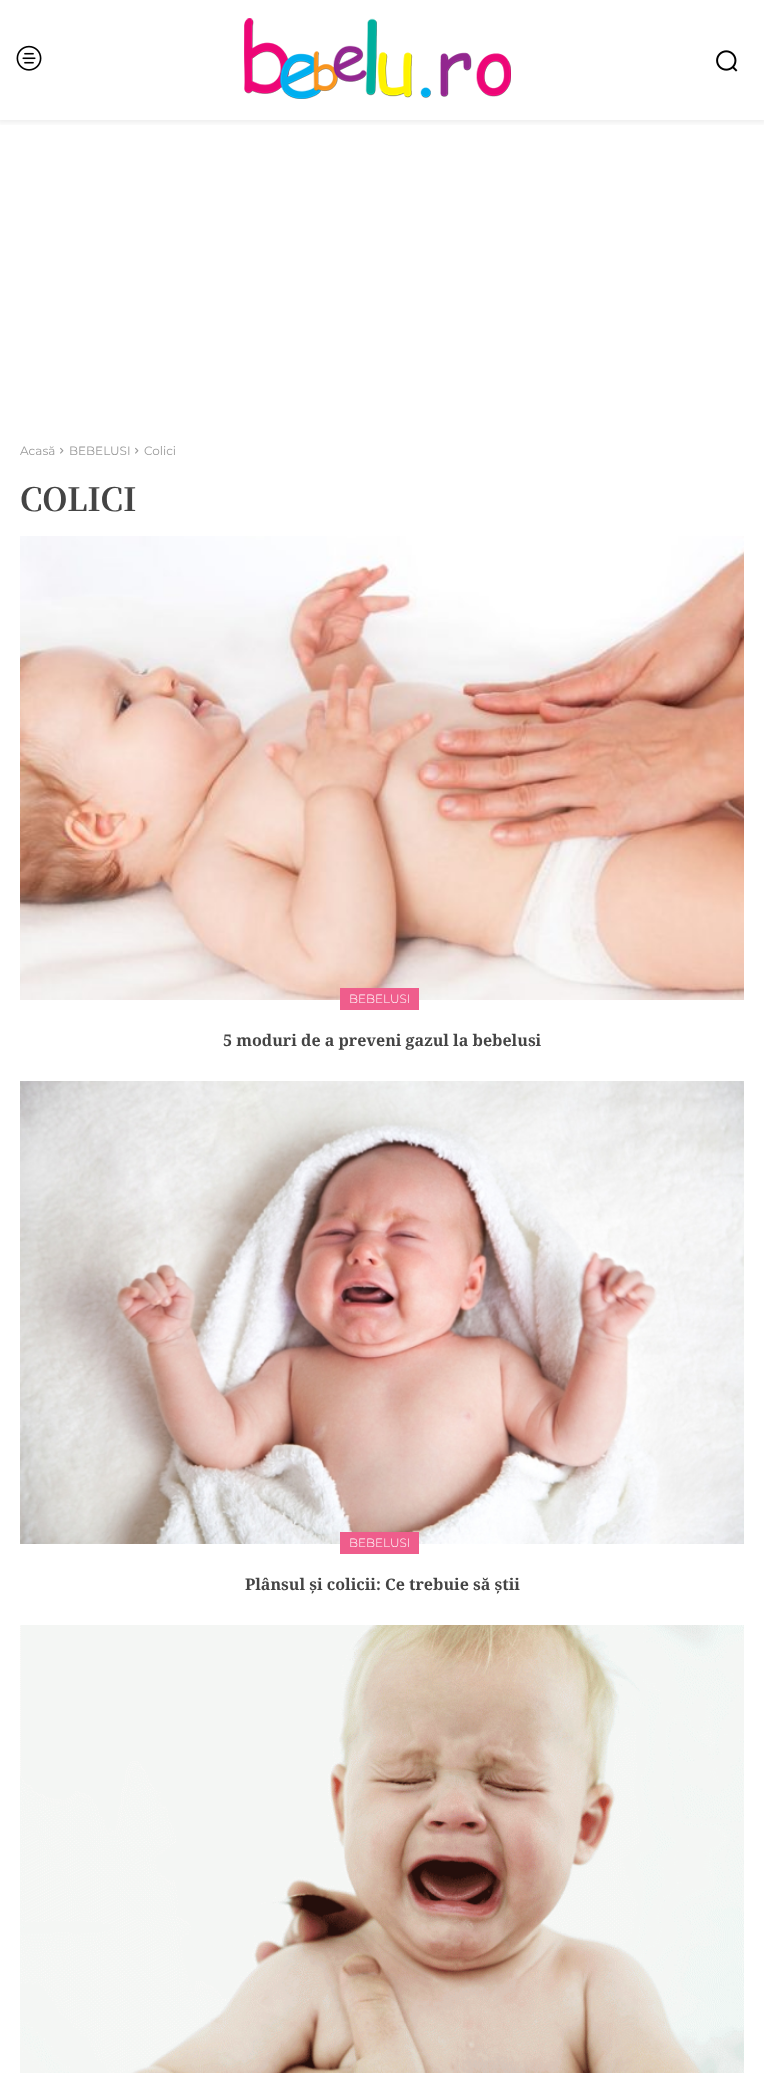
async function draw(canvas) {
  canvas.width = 764;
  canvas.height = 2073;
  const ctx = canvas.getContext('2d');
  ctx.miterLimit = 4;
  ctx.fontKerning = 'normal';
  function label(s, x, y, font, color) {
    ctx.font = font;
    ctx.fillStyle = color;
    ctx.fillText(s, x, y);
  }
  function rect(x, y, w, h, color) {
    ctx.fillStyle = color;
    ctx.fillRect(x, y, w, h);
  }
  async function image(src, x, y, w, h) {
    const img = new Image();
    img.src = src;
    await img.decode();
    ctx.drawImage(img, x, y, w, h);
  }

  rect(0, 0, 764, 2073, '#fff');
  await image('assets/img1.png', 16, 45, 26, 26);
  await image('assets/img2.png', 244, 18, 267, 81);
  await image('assets/img3.png', 716, 50, 22, 22);
  ctx.save();
  ctx.beginPath();
  ctx.rect(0, 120, 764, 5);
  ctx.clip();
  ctx.fillStyle = '#0000001f';
  ctx.filter = 'blur(5px)';
  ctx.beginPath();
  ctx.rect(-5, 0, 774, 120);
  ctx.fill();
  ctx.filter = 'none';
  ctx.restore();
  label('Acasă', 20, 455, '12px Montserrat', '#999');
  await image('assets/img4.png', 60, 447, 4, 7);
  label('BEBELUSI', 69, 455, '12px Montserrat', '#999');
  await image('assets/img4.png', 135, 447, 4, 7);
  label('Colici', 144, 455, '12px Montserrat', '#999');
  label('COLICI', 20, 511, 'bold 32px Noto Serif TC', '#444');
  await image('assets/img5.png', 20, 536, 724, 464);
  rect(340, 988, 79, 22, '#ef5d8c');
  label('BEBELUSI', 349, 1003, '300 12px Montserrat', '#fff');
  label('5 moduri de a preveni gazul la bebelusi', 223, 1046, 'bold 16px Noto Serif', '#444');
  await image('assets/img6.png', 20, 1081, 724, 463);
  rect(340, 1532, 79, 22, '#ef5d8c');
  label('BEBELUSI', 349, 1547, '300 12px Montserrat', '#fff');
  label('Plânsul și colicii: Ce trebuie să știi', 245, 1590, 'bold 16px Noto Serif', '#444');
  await image('assets/img7.png', 20, 1625, 724, 448);
}

draw(document.querySelector('canvas'));
